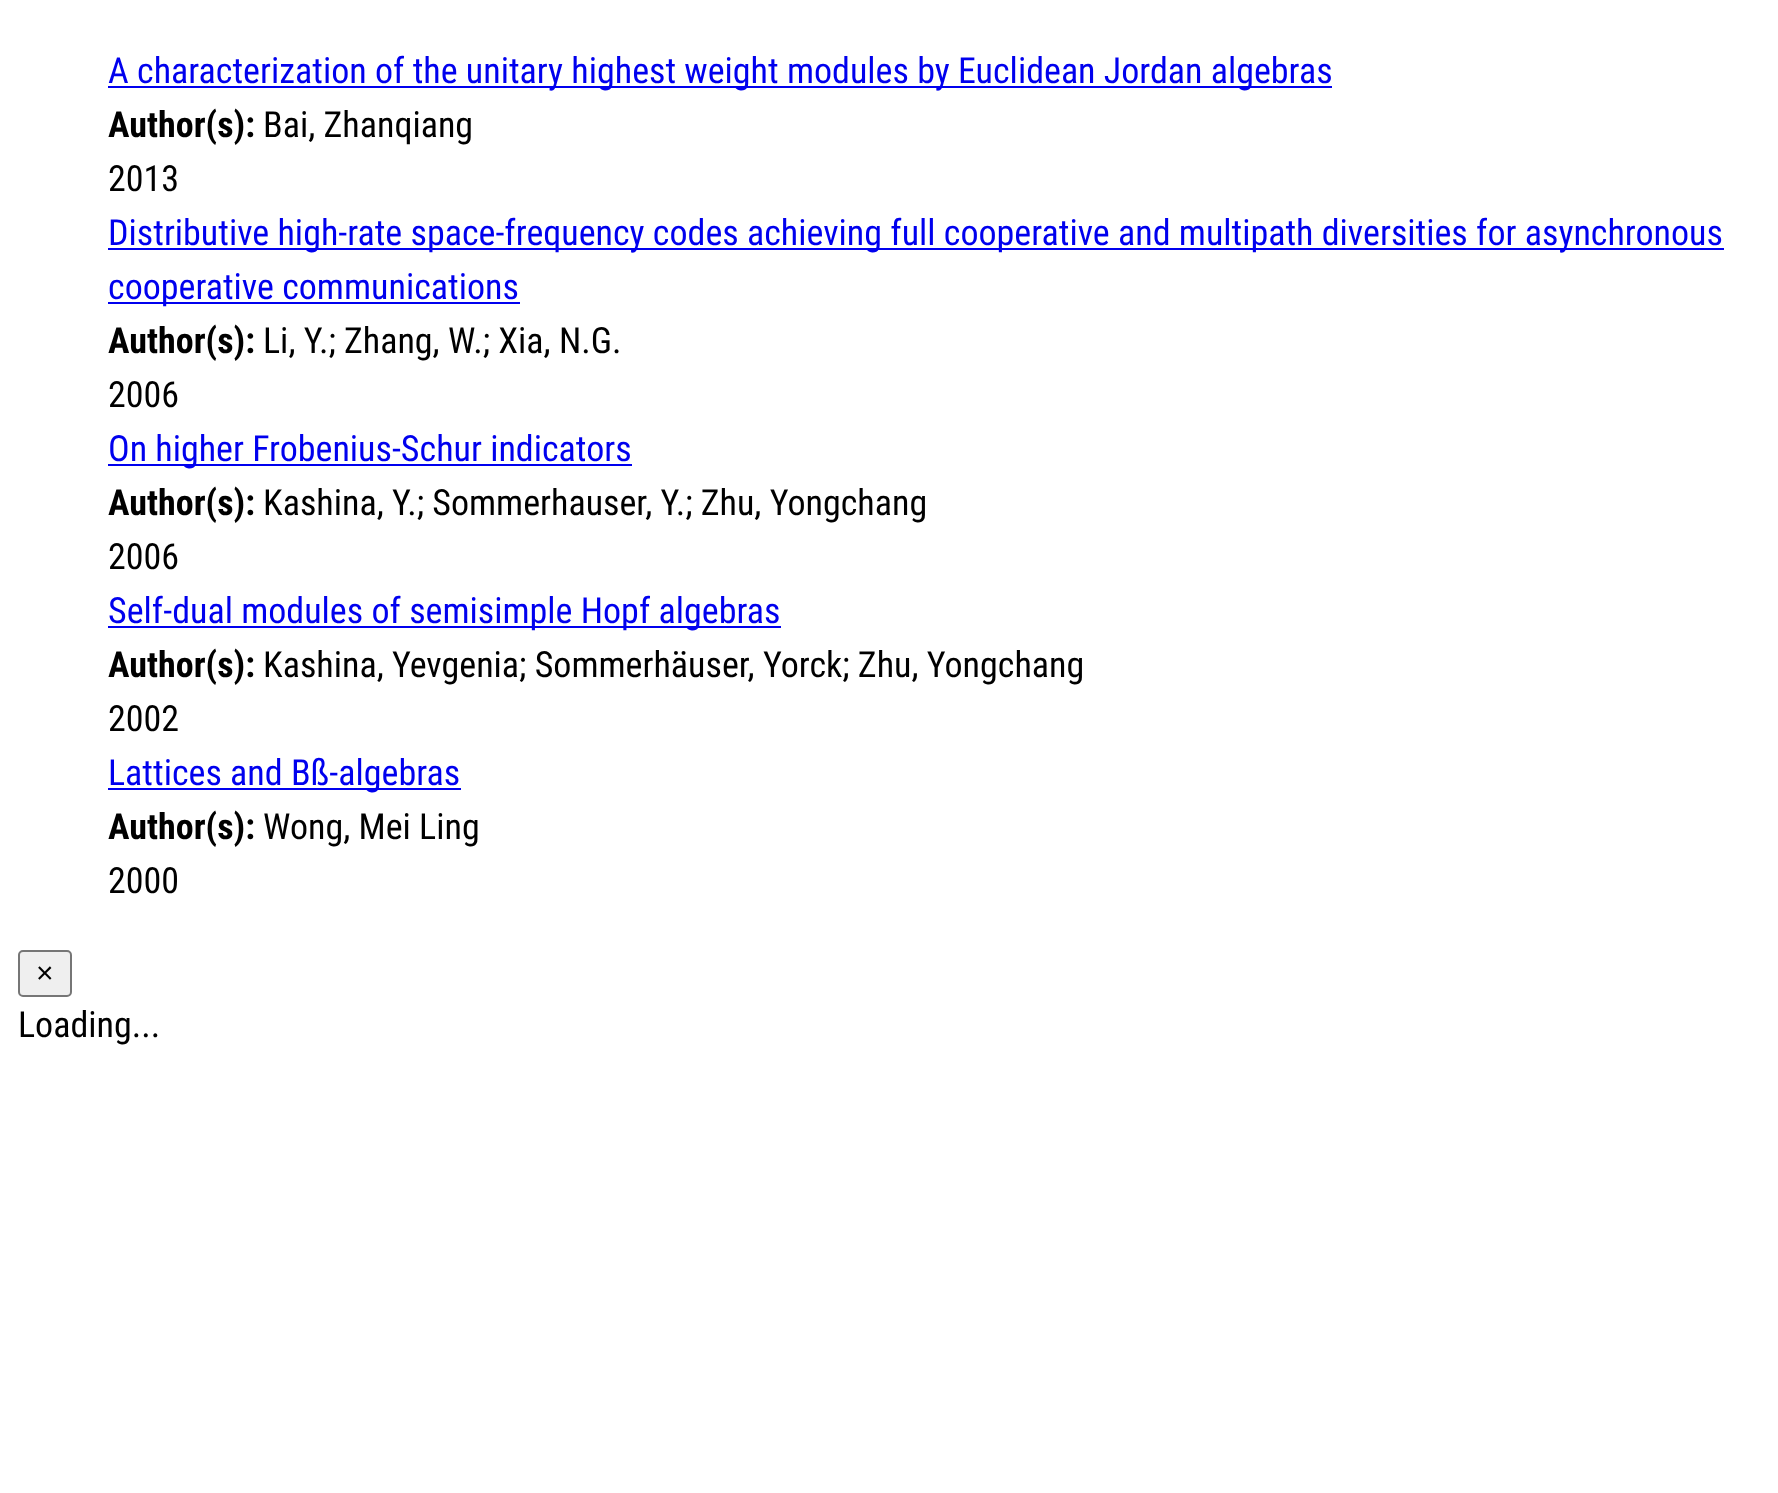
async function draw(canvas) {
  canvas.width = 1778;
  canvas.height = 1493;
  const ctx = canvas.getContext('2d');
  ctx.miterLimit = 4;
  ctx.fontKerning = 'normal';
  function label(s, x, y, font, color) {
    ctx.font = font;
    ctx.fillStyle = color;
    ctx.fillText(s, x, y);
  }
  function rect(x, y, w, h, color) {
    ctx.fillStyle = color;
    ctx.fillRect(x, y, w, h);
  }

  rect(0, 0, 1778, 1493, '#fff');
  rect(108, 86, 1224, 2, '#00e');
  label('A characterization of the unitary highest weight modules by Euclidean Jordan algebras', 108, 83, '36px Roboto Condensed', '#00e');
  label('Author(s):', 108, 137, 'bold 36px Roboto Condensed', '#000');
  label('Bai, Zhanqiang', 263, 137, '36px Roboto Condensed', '#000');
  label('2013', 108, 191, '36px Roboto Condensed', '#000');
  rect(108, 248, 1616, 2, '#00e');
  label('Distributive high-rate space-frequency codes achieving full cooperative and multipath diversities for asynchronous', 108, 245, '36px Roboto Condensed', '#00e');
  rect(108, 302, 412, 2, '#00e');
  label('cooperative communications', 108, 299, '36px Roboto Condensed', '#00e');
  label('Author(s):', 108, 353, 'bold 36px Roboto Condensed', '#000');
  label('Li, Y.; Zhang, W.; Xia, N.G.', 263, 353, '36px Roboto Condensed', '#000');
  label('2006', 108, 407, '36px Roboto Condensed', '#000');
  rect(108, 464, 524, 2, '#00e');
  label('On higher Frobenius-Schur indicators', 108, 461, '36px Roboto Condensed', '#00e');
  label('Author(s):', 108, 515, 'bold 36px Roboto Condensed', '#000');
  label('Kashina, Y.; Sommerhauser, Y.; Zhu, Yongchang', 263, 515, '36px Roboto Condensed', '#000');
  label('2006', 108, 569, '36px Roboto Condensed', '#000');
  rect(108, 626, 673, 2, '#00e');
  label('Self-dual modules of semisimple Hopf algebras', 108, 623, '36px Roboto Condensed', '#00e');
  label('Author(s):', 108, 677, 'bold 36px Roboto Condensed', '#000');
  label('Kashina, Yevgenia; Sommerhäuser, Yorck; Zhu, Yongchang', 263, 677, '36px Roboto Condensed', '#000');
  label('2002', 108, 731, '36px Roboto Condensed', '#000');
  rect(108, 788, 353, 2, '#00e');
  label('Lattices and Bß-algebras', 108, 785, '36px Roboto Condensed', '#00e');
  label('Author(s):', 108, 839, 'bold 36px Roboto Condensed', '#000');
  label('Wong, Mei Ling', 263, 839, '36px Roboto Condensed', '#000');
  label('2000', 108, 893, '36px Roboto Condensed', '#000');
  ctx.fillStyle = '#efefef';
  ctx.beginPath();
  ctx.roundRect(19, 951, 52, 45, 4);
  ctx.fill();
  ctx.strokeStyle = '#767676';
  ctx.lineWidth = 2;
  ctx.stroke();
  label('×', 36, 983, '30px Liberation Sans', '#000');
  label('Loading...', 18, 1037, '36px Roboto Condensed', '#000');
}

draw(document.querySelector('canvas'));
